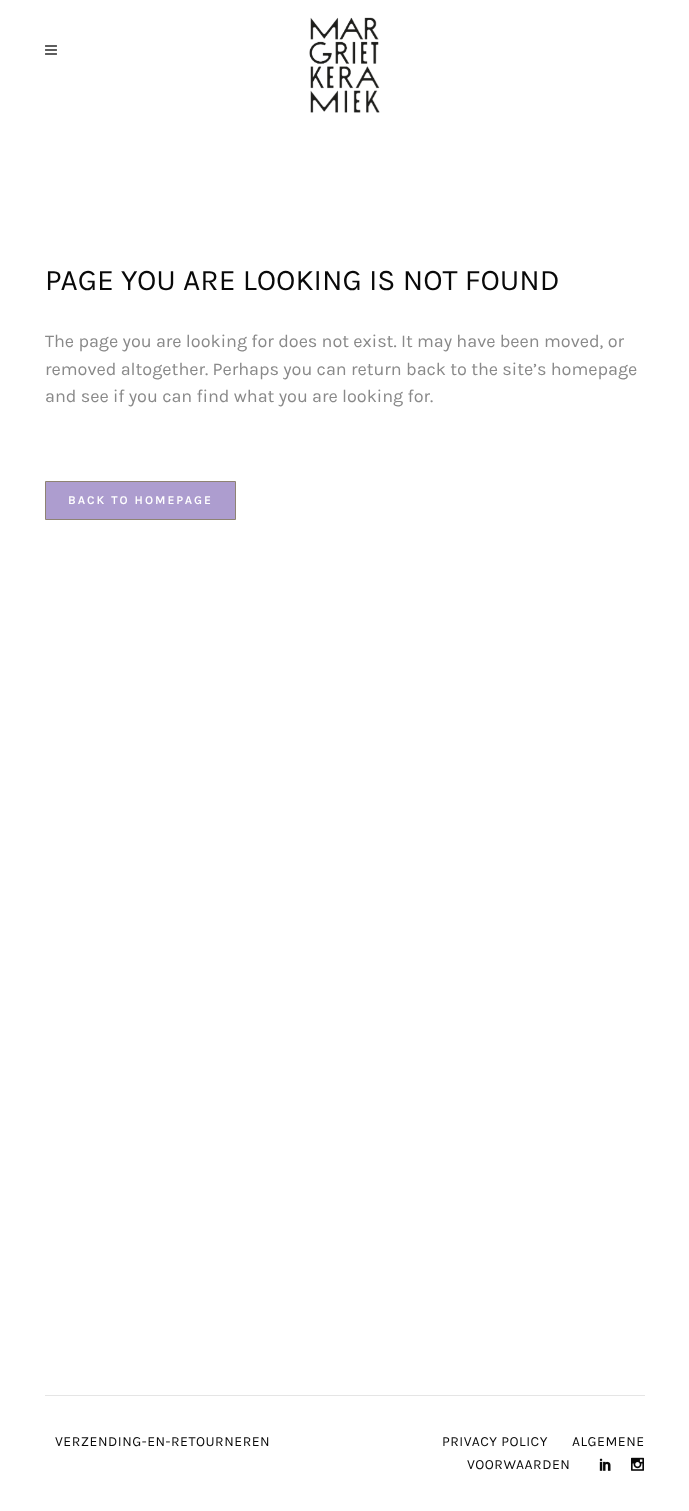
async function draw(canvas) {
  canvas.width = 689;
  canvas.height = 1511;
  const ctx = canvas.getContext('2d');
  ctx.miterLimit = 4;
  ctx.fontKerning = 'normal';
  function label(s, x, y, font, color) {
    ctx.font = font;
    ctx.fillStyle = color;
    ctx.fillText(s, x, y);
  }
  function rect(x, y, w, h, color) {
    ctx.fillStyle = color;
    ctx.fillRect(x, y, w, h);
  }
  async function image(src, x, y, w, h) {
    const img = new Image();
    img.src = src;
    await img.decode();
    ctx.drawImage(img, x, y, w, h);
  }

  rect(0, 0, 689, 1511, '#fff');
  await image('assets/img1.png', 45, 45, 12, 10);
  await image('assets/img2.png', 309, 17, 71, 96);
  label('PAGE YOU ARE LOOKING IS NOT FOUND', 45, 290, '30px Karla', '#090909');
  label('The page you are looking for does not exist. It may have been moved, or', 45, 347, '18px Karla', '#898989');
  label('removed altogether. Perhaps you can return back to the site’s homepage', 45, 375, '18px Karla', '#898989');
  label('and see if you can find what you are looking for.', 45, 402, '18px Karla', '#898989');
  ctx.fillStyle = '#ad9dcf';
  ctx.beginPath();
  ctx.rect(45.5, 481.5, 190, 38);
  ctx.fill();
  ctx.strokeStyle = '#8e8373';
  ctx.stroke();
  ctx.letterSpacing = '2px';
  label('BACK TO HOMEPAGE', 68, 504, '600 12px Karla', '#fff');
  rect(45, 1395, 600, 1, '#e5e5e5');
  ctx.letterSpacing = '0.5px';
  label('VERZENDING-EN-RETOURNEREN', 55, 1446, '14px Karla', '#090909');
  label('PRIVACY POLICY', 442, 1446, '14px Karla', '#090909');
  label('ALGEMENE', 572, 1446, '14px Karla', '#090909');
  label('VOORWAARDEN', 467, 1469, '14px Karla', '#090909');
  await image('assets/img3.png', 599, 1458, 12, 13);
  await image('assets/img4.png', 631, 1457, 13, 14);
}

draw(document.querySelector('canvas'));
